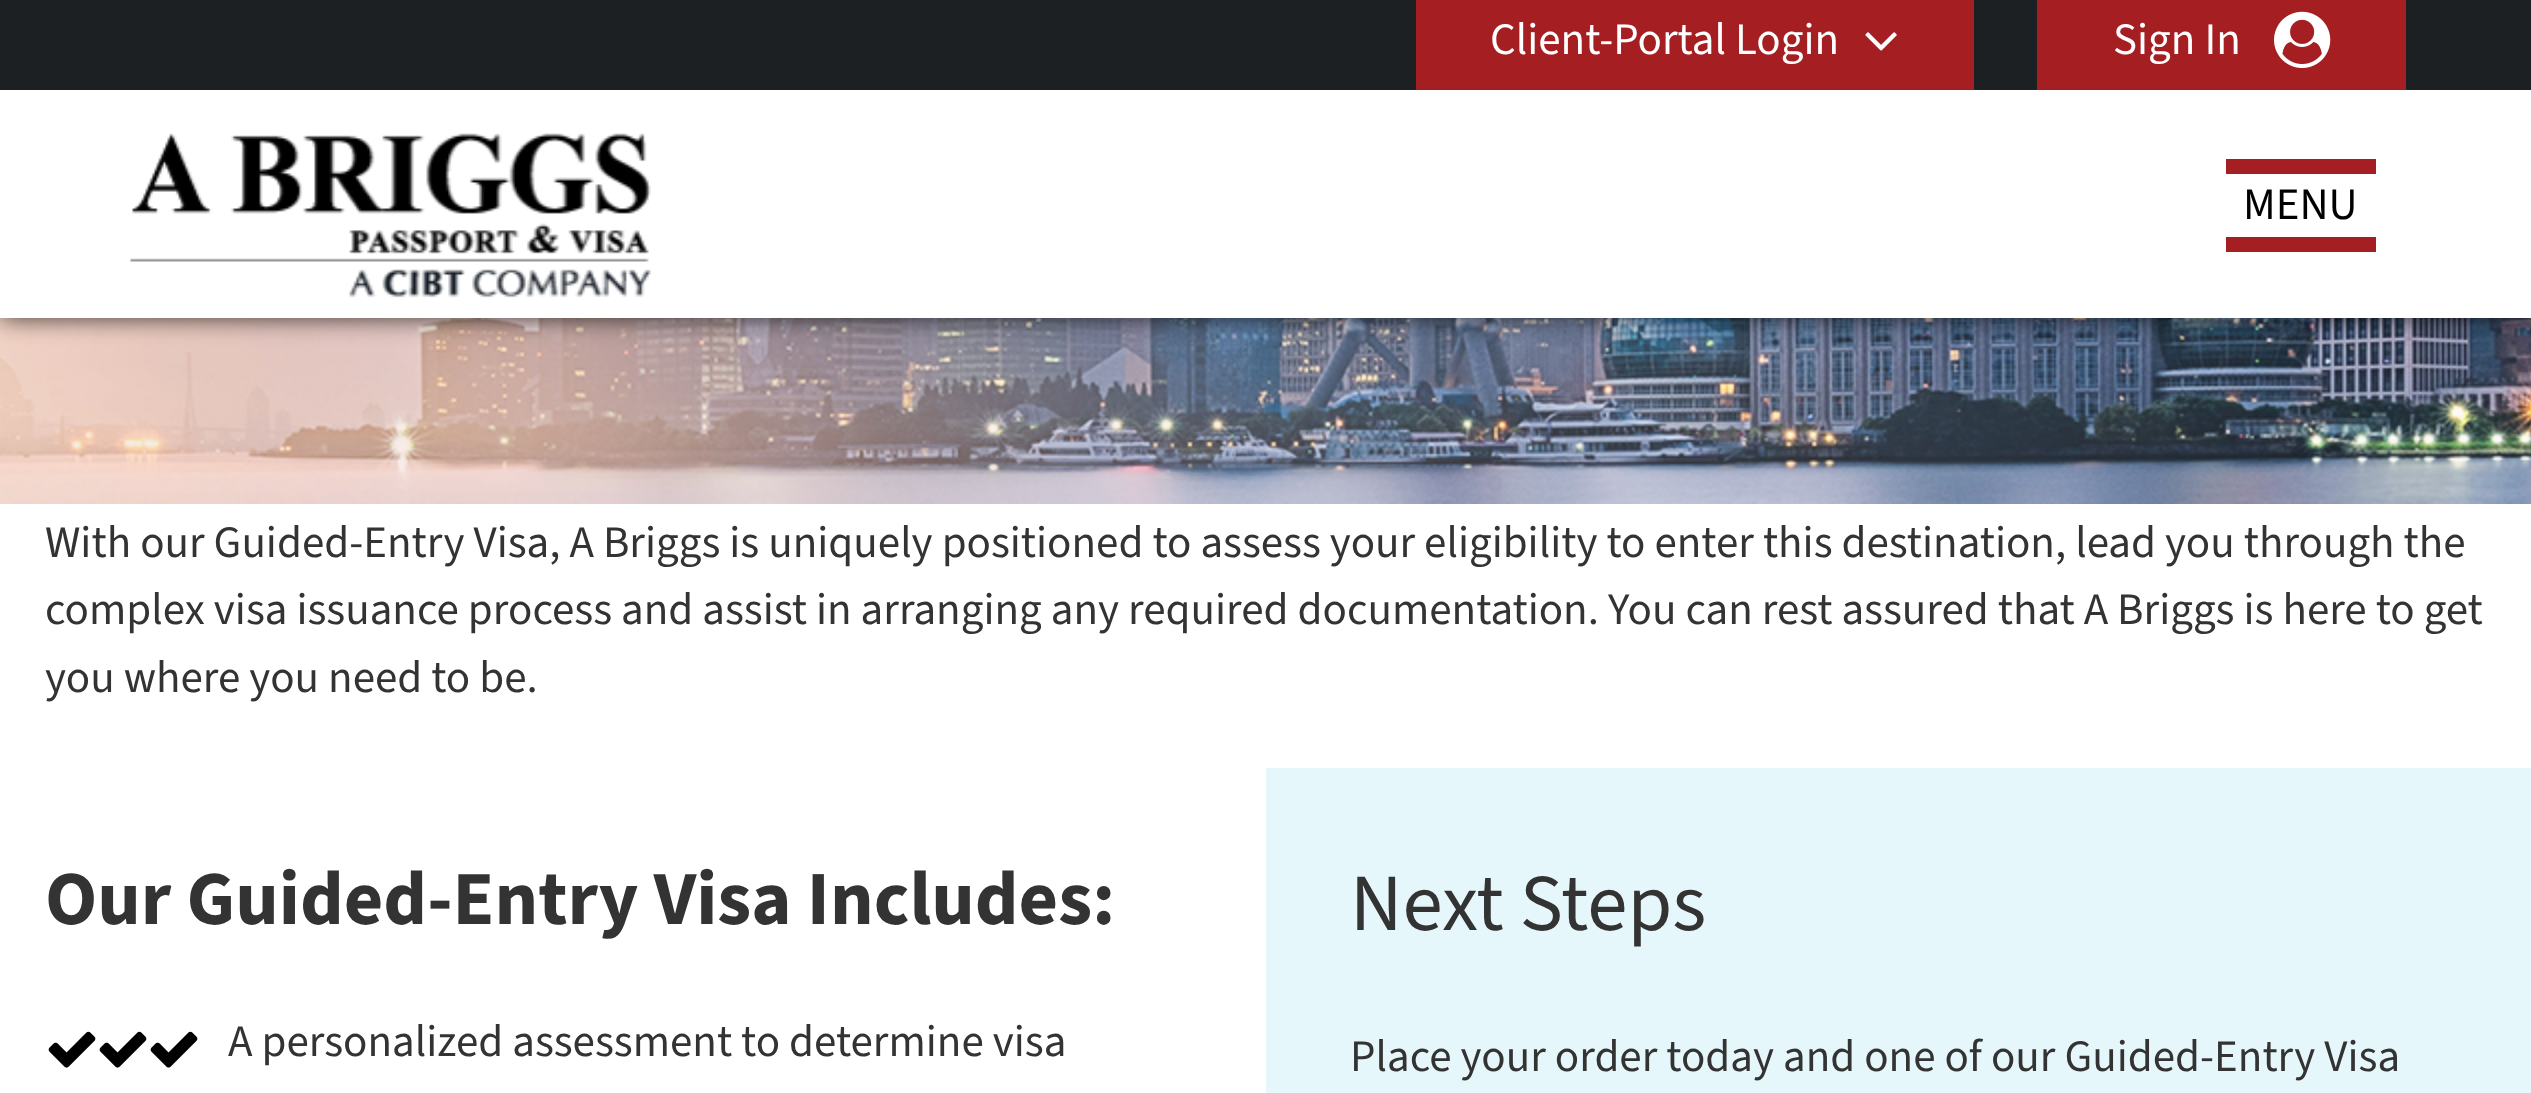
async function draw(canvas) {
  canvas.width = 2531;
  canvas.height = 1093;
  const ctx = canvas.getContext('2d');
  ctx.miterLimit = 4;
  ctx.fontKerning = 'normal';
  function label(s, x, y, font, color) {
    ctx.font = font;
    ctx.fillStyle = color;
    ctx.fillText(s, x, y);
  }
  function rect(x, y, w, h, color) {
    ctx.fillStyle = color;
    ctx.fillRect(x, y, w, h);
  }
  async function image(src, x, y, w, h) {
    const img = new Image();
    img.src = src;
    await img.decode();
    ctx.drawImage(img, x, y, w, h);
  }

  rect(0, 0, 2531, 1093, '#fff');
  await image('assets/img4.png', 0, 318, 2531, 186);
  ctx.fillStyle = '#000000bf';
  ctx.filter = 'blur(12px)';
  ctx.beginPath();
  ctx.rect(0, 0, 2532, 318);
  ctx.fill();
  ctx.filter = 'none';
  rect(0, 0, 2531, 90, '#1c2023');
  rect(1416, 0, 558, 90, '#a51e22');
  label('Client-Portal Login', 1490, 54, '45px "Source Sans 3"', '#fff');
  await image('assets/img1.png', 1865, 32, 32, 19);
  rect(2037, 0, 369, 90, '#a51e22');
  label('Sign In', 2113, 54, '45px "Source Sans 3"', '#fff');
  await image('assets/img2.png', 2274, 11, 57, 57);
  rect(0, 90, 2531, 228, '#fff');
  await image('assets/img3.png', 129, 133, 522, 165);
  rect(2226, 159, 150, 15, '#a51e22');
  label('MENU', 2243, 219, '45px "Source Sans 3"', '#000');
  rect(2226, 237, 150, 15, '#a51e22');
  label('With our Guided-Entry Visa, A Briggs is uniquely positioned to assess your eligibility to enter this destination, lead you through the', 45, 557, '45px "Source Sans 3"', '#333');
  label('complex visa issuance process and assist in arranging any required documentation. You can rest assured that A Briggs is here to get', 45, 624, '45px "Source Sans 3"', '#333');
  label('you where you need to be.', 45, 692, '45px "Source Sans 3"', '#333');
  label('Our Guided-Entry Visa Includes:', 45, 924, 'bold 76.5px "Source Sans 3"', '#333');
  await image('assets/img5.png', 48, 1031, 48, 37);
  await image('assets/img5.png', 99, 1031, 48, 37);
  await image('assets/img5.png', 150, 1031, 48, 37);
  label('A personalized assessment to determine visa', 228, 1056, '45px "Source Sans 3"', '#333');
  rect(1266, 768, 1265, 325, '#e6f7fb');
  label('Next Steps', 1350, 930, '81px "Source Sans 3"', '#333');
  label('Place your order today and one of our Guided-Entry Visa', 1350, 1071, '45px "Source Sans 3"', '#333');
}

draw(document.querySelector('canvas'));
